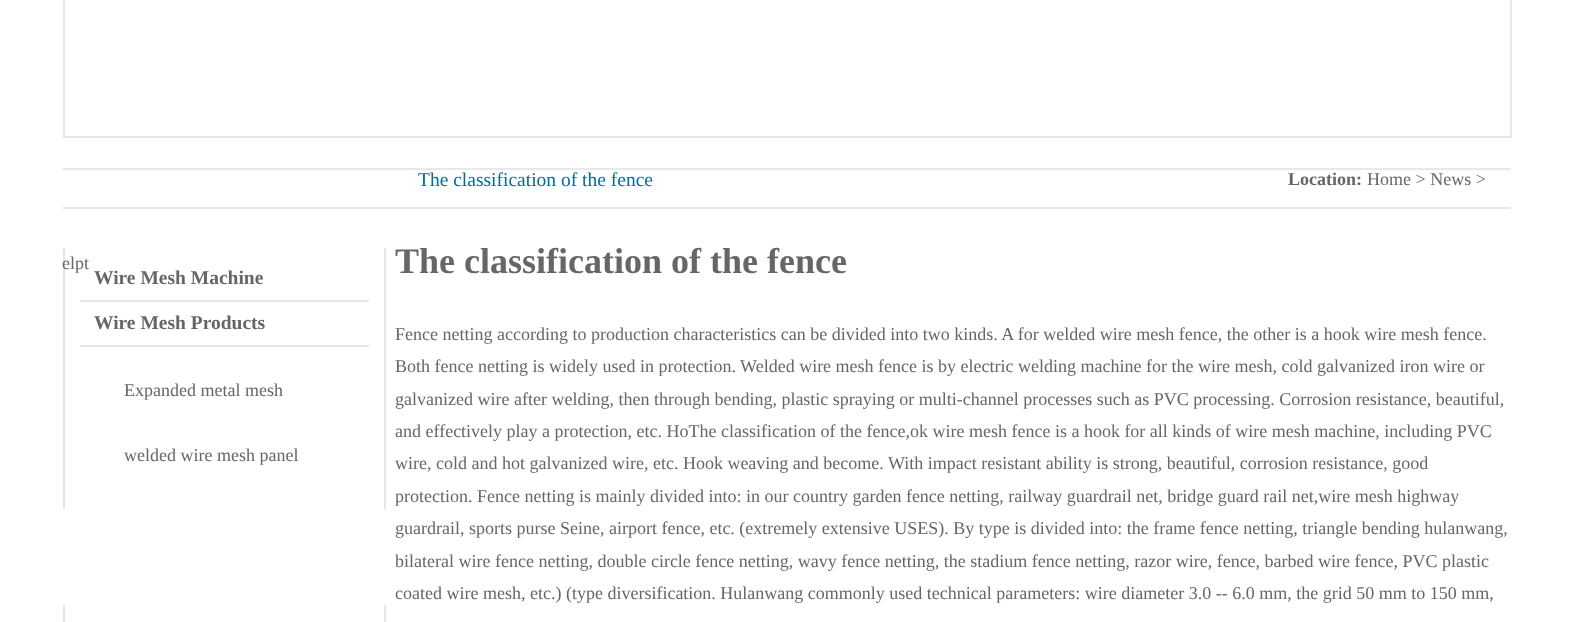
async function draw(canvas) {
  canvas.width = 1572;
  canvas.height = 622;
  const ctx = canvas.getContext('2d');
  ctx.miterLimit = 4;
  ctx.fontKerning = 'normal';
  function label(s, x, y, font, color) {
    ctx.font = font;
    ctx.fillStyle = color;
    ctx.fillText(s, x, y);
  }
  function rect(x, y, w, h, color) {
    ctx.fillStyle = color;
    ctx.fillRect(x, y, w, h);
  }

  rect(0, 0, 1572, 622, '#fff');
  ctx.strokeStyle = '#e7e7e7';
  ctx.lineWidth = 2;
  ctx.strokeRect(64, -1, 1447, 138);
  rect(63, 168, 1448, 2, '#e8e8e8');
  rect(63, 207, 1448, 2, '#e8e8e8');
  rect(63, 248, 2, 261, '#e5e5e5');
  label('elpt', 62, 269, '18px Liberation Serif', '#666');
  rect(384, 248, 2, 261, '#e5e5e5');
  rect(80, 300, 289, 2, '#e5e5e5');
  label('Wire Mesh Machine', 94, 284, 'bold 19.5px Liberation Serif', '#666');
  rect(80, 345, 289, 2, '#e5e5e5');
  label('Wire Mesh Products', 94, 329, 'bold 19.5px Liberation Serif', '#666');
  label('Expanded metal mesh', 124, 396, '18px Liberation Serif', '#666');
  label('welded wire mesh panel', 124, 461, '18px Liberation Serif', '#666');
  rect(384, 605, 2, 17, '#e5e5e5');
  rect(63, 605, 2, 17, '#e5e5e5');
  label('The classification of the fence', 418, 186, '19.5px Liberation Serif', '#006d9b');
  label('Location:', 1288, 185, 'bold 18px Liberation Serif', '#666');
  label('Home > News >', 1367, 185, '18px Liberation Serif', '#666');
  label('The classification of the fence', 395, 273, 'bold 36px Liberation Serif', '#666');
  label('Fence netting according to production characteristics can be divided into two kinds. A for welded wire mesh fence, the other is a hook wire mesh fence.', 395, 340, '18px Liberation Serif', '#666');
  label('Both fence netting is widely used in protection. Welded wire mesh fence is by electric welding machine for the wire mesh, cold galvanized iron wire or', 395, 372, '18px Liberation Serif', '#666');
  label('galvanized wire after welding, then through bending, plastic spraying or multi-channel processes such as PVC processing. Corrosion resistance, beautiful,', 395, 405, '18px Liberation Serif', '#666');
  label('and effectively play a protection, etc. HoThe classification of the fence,ok wire mesh fence is a hook for all kinds of wire mesh machine, including PVC', 395, 437, '18px Liberation Serif', '#666');
  label('wire, cold and hot galvanized wire, etc. Hook weaving and become. With impact resistant ability is strong, beautiful, corrosion resistance, good', 395, 469, '18px Liberation Serif', '#666');
  label('protection. Fence netting is mainly divided into: in our country garden fence netting, railway guardrail net, bridge guard rail net,wire mesh highway', 395, 502, '18px Liberation Serif', '#666');
  label('guardrail, sports purse Seine, airport fence, etc. (extremely extensive USES). By type is divided into: the frame fence netting, triangle bending hulanwang,', 395, 534, '18px Liberation Serif', '#666');
  label('bilateral wire fence netting, double circle fence netting, wavy fence netting, the stadium fence netting, razor wire, fence, barbed wire fence, PVC plastic', 395, 567, '18px Liberation Serif', '#666');
  label('coated wire mesh, etc.) (type diversification. Hulanwang commonly used technical parameters: wire diameter 3.0 -- 6.0 mm, the grid 50 mm to 150 mm,', 395, 599, '18px Liberation Serif', '#666');
}

draw(document.querySelector('canvas'));
